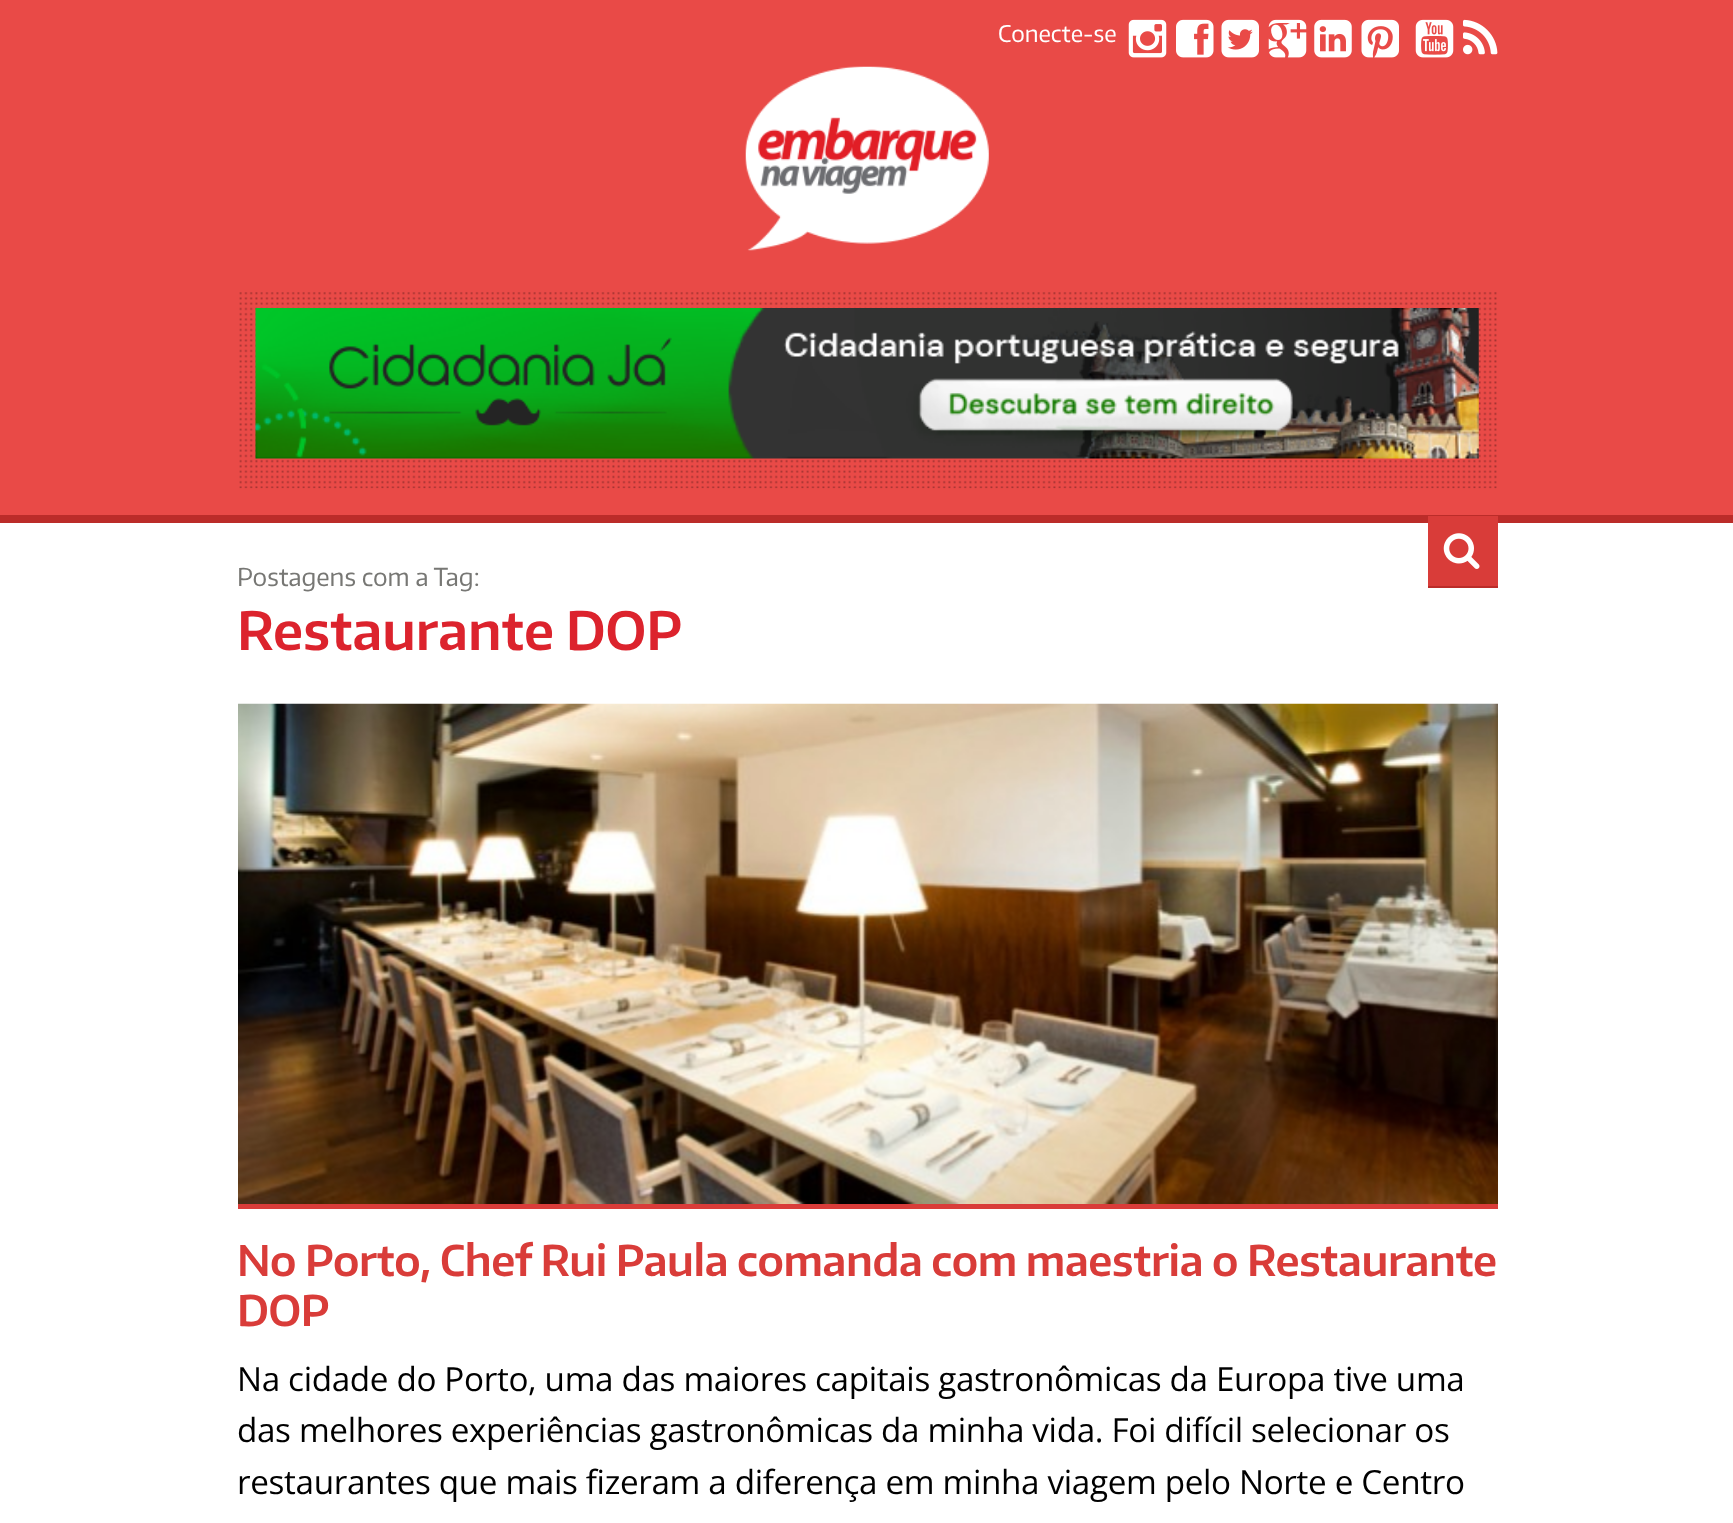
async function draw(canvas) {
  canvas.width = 1733;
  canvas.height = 1523;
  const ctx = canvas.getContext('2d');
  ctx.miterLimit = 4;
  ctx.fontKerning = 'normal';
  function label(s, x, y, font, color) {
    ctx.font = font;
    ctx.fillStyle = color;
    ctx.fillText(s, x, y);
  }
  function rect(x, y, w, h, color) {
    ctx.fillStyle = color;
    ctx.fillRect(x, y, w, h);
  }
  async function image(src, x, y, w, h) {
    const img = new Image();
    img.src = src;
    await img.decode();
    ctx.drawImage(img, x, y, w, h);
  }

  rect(0, 0, 1733, 1523, '#fff');
  rect(0, 0, 1733, 515, '#e94a47');
  label('Conecte-se', 998, 42, '22.75px Encode Sans', '#fff');
  await image('assets/img1.png', 1128, 19, 39, 39);
  await image('assets/img2.png', 1176, 19, 38, 39);
  await image('assets/img3.png', 1221, 19, 38, 39);
  await image('assets/img4.png', 1268, 19, 39, 39);
  await image('assets/img5.png', 1314, 19, 38, 39);
  await image('assets/img6.png', 1361, 19, 38, 39);
  await image('assets/img7.png', 1415, 19, 39, 39);
  await image('assets/img8.png', 1463, 19, 35, 36);
  await image('assets/img9.png', 745, 66, 244, 185);
  await image('assets/img10.png', 239, 292, 1258, 197);
  await image('assets/img11.png', 255, 308, 1224, 151);
  rect(0, 515, 1733, 8, '#bb2c29');
  rect(1428, 516, 70, 70, '#d93c39');
  await image('assets/img12.png', 1443, 533, 37, 36);
  rect(1428, 586, 70, 2, '#bb2c29');
  label('Postagens com a Tag:', 237, 586, '24.5px Encode Sans', '#777774');
  label('Restaurante DOP', 237, 650, '600 52.5px Encode Sans', '#dc232d');
  rect(238, 1204, 1260, 5, '#d93c39');
  await image('assets/img13.png', 238, 703, 1260, 501);
  ctx.letterSpacing = '-0.35px';
  label('No Porto, Chef Rui Paula comanda com maestria o Restaurante', 237, 1276, '600 42px Encode Sans', '#d93c39');
  label('DOP', 237, 1326, '600 42px Encode Sans', '#d93c39');
  label('Na cidade do Porto, uma das maiores capitais gastronômicas da Europa tive uma', 237, 1391, '33.25px Open Sans', '#000');
  label('das melhores experiências gastronômicas da minha vida. Foi difícil selecionar os', 237, 1442, '33.25px Open Sans', '#000');
  label('restaurantes que mais fizeram a diferença em minha viagem pelo Norte e Centro', 237, 1494, '33.25px Open Sans', '#000');
}

draw(document.querySelector('canvas'));
